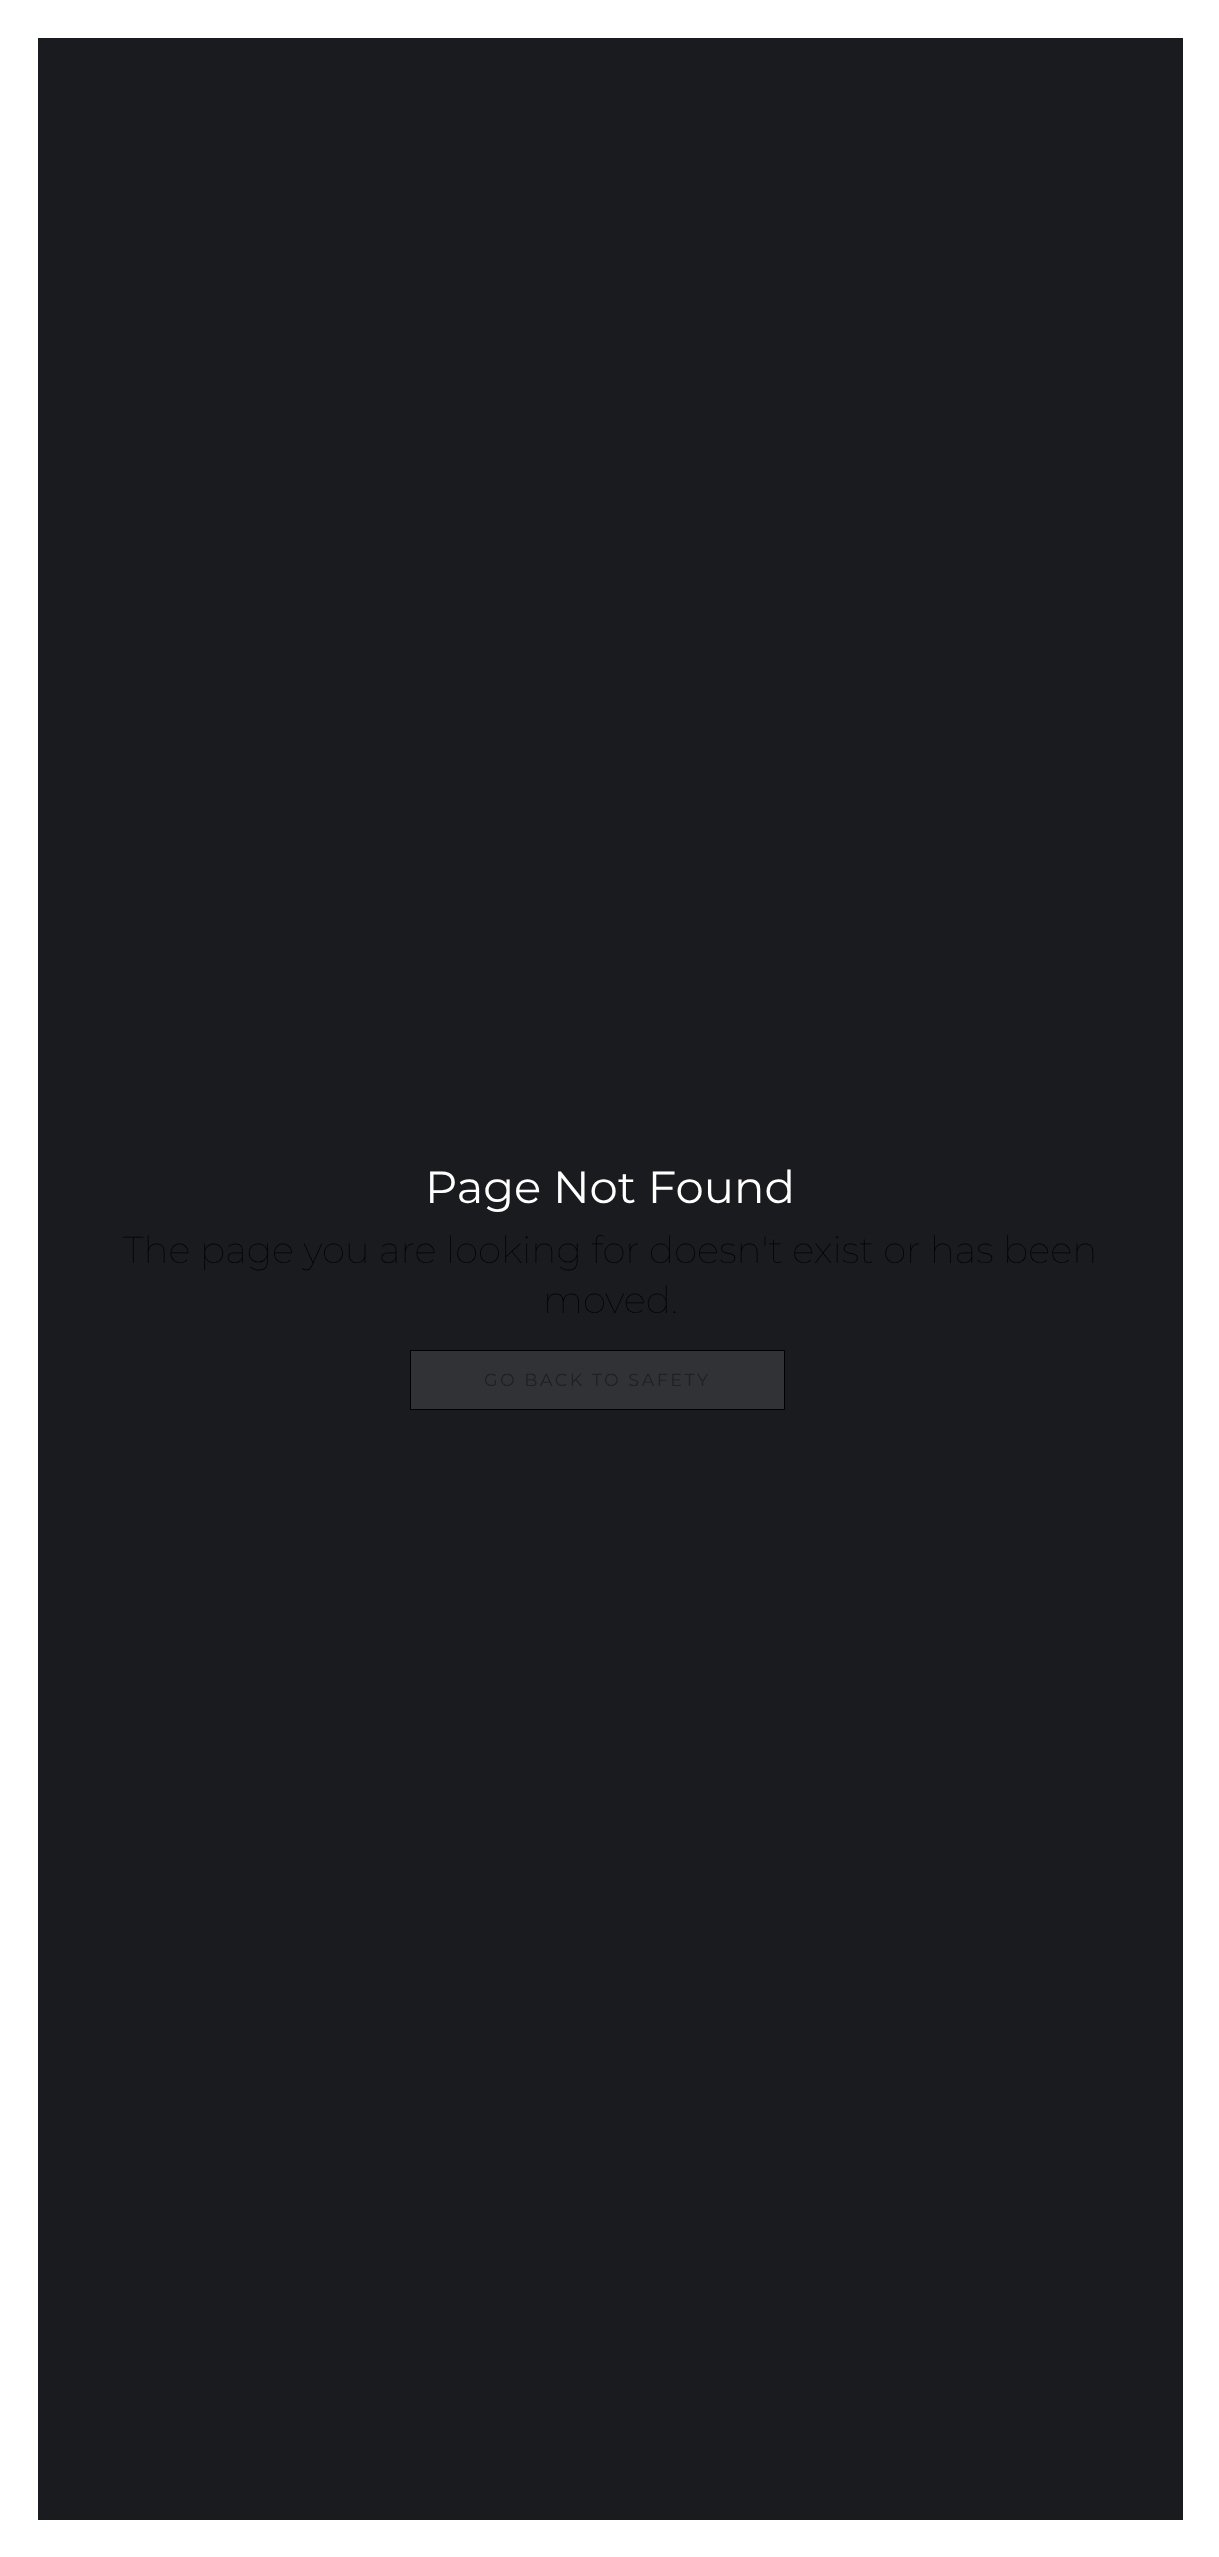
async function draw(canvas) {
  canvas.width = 1219;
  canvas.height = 2557;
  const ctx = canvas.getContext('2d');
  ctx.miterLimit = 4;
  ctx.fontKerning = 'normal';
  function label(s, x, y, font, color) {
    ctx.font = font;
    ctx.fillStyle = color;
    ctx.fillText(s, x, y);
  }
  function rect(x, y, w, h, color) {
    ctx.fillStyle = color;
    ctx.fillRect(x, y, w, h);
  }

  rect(0, 0, 1219, 2557, '#fff');
  rect(38, 38, 1145, 2482, '#1a1b1f');
  label('Page Not Found', 425, 1203, '45px Montserrat', '#fff');
  label('The page you are looking for doesn\'t exist or has been', 123, 1263, '100 37.5px Montserrat', '#000');
  label('moved.', 543, 1313, '100 37.5px Montserrat', '#000');
  ctx.fillStyle = '#313235';
  ctx.beginPath();
  ctx.rect(410.5, 1350.5, 374, 59);
  ctx.fill();
  ctx.strokeStyle = '#000';
  ctx.stroke();
  ctx.letterSpacing = '2.5px';
  label('GO BACK TO SAFETY', 484, 1386, '17.5px Montserrat', '#202020');
}

draw(document.querySelector('canvas'));
